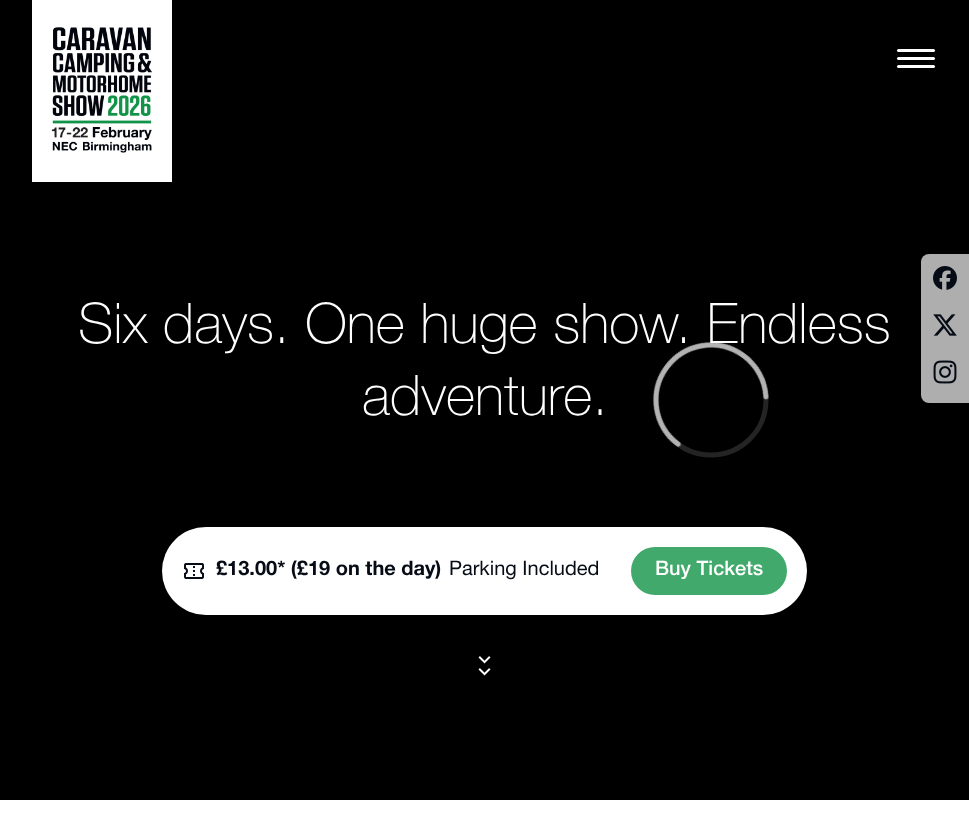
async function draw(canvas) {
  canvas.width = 969;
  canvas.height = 813;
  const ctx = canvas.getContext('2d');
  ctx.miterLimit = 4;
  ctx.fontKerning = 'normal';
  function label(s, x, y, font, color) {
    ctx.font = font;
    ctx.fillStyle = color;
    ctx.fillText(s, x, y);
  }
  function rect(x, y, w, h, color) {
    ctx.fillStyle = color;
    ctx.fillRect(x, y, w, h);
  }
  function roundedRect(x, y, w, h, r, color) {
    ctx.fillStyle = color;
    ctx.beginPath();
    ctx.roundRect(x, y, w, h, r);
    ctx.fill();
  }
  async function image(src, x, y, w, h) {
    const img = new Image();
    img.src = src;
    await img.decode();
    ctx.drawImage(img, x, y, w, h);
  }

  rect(0, 0, 969, 813, '#fff');
  await image('assets/img1.png', 0, 0, 969, 800);
  roundedRect(897, 49, 38, 3, 1.5, '#fff');
  roundedRect(897, 57, 38, 3, 1.5, '#fff');
  roundedRect(897, 65, 38, 3, 1.5, '#fff');
  rect(32, 0, 140, 182, '#fff');
  await image('assets/img2.png', 51, 27, 102, 126);
  label('Six days. One huge show. Endless', 78, 343, '200 56px Helvetica Neue', '#fff');
  label('adventure.', 362, 415, '200 56px Helvetica Neue', '#fff');
  roundedRect(162, 527, 645, 88, 44, '#fff');
  await image('assets/img3.png', 184, 563, 20, 16);
  label('£13.00* (£19 on the day)', 216, 575, 'bold 20px Helvetica Neue', '#060c16');
  label('Parking Included', 449, 575, '20px Helvetica Neue', '#060c16');
  roundedRect(631, 547, 156, 48, 24, '#40a96b');
  label('Buy Tickets', 655, 575, '500 20px Helvetica Neue', '#fff');
  await image('assets/img4.png', 478, 656, 13, 8);
  await image('assets/img4.png', 478, 668, 13, 8);
  ctx.fillStyle = '#aeaeae';
  ctx.beginPath();
  ctx.roundRect(921, 254, 48, 149, [8, 0, 0, 8]);
  ctx.fill();
  await image('assets/img5.png', 933, 266, 24, 24);
  await image('assets/img6.png', 933, 314, 24, 22);
  await image('assets/img7.png', 933, 360, 24, 24);
}

draw(document.querySelector('canvas'));
